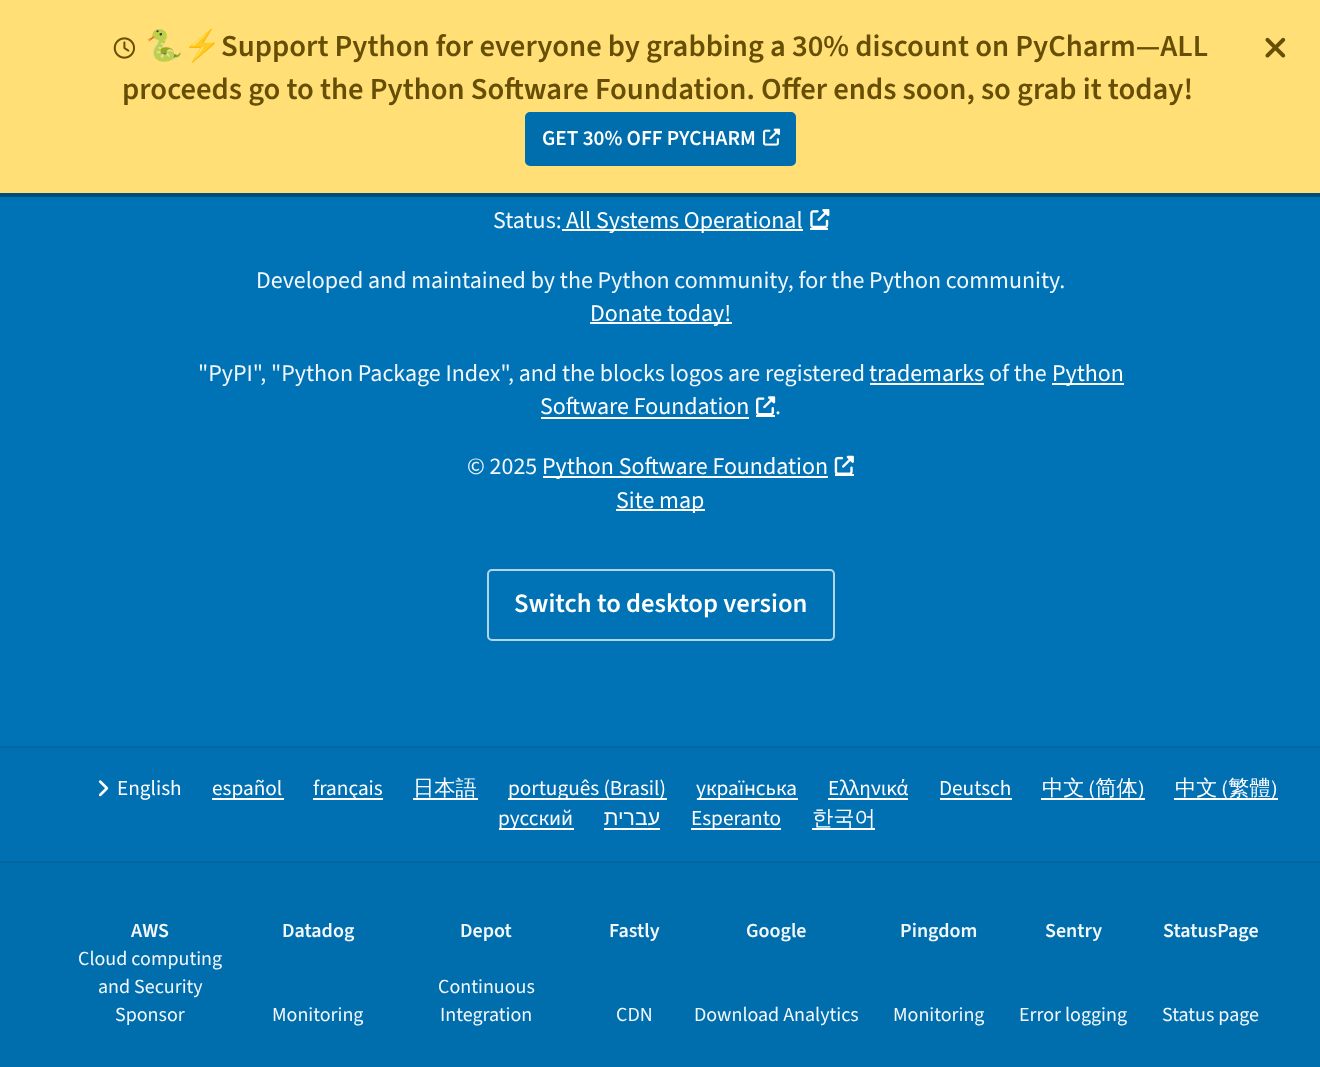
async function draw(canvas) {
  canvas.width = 1320;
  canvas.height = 1067;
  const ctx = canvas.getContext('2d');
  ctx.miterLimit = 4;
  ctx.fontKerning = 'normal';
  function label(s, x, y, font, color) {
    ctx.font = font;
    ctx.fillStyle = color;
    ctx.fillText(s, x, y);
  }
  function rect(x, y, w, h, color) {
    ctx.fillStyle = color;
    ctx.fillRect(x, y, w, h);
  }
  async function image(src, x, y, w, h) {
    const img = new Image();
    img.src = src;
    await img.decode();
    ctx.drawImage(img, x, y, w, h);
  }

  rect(0, 0, 1320, 1067, '#0073b7');
  rect(0, 0, 1320, 193, '#ffdf76');
  rect(0, 193, 1320, 4, '#004d7a');
  label('🐍⚡️', 145, 56, 'bold 30.6px Noto Color Emoji', '#664e04');
  label('Support Python for everyone by grabbing a 30% discount on PyCharm—ALL', 221, 56, '600 30.6px "Source Sans 3"', '#664e04');
  label('proceeds go to the Python Software Foundation. Offer ends soon, so grab it today!', 122, 99, '600 30.6px "Source Sans 3"', '#664e04');
  ctx.fillStyle = '#006dad';
  ctx.beginPath();
  ctx.roundRect(526, 113, 269, 52, 4);
  ctx.fill();
  ctx.strokeStyle = '#006dad';
  ctx.lineWidth = 2;
  ctx.stroke();
  label('GET 30% OFF PYCHARM', 542, 145, '600 21.25px "Source Sans 3"', '#fff');
  await image('assets/img1.png', 763, 128, 18, 18);
  await image('assets/img2.png', 113, 37, 22, 22);
  await image('assets/img3.png', 1265, 37, 21, 21);
  label('Status:', 493, 228, '23.95px "Source Sans 3"', '#f2f8fb');
  rect(562, 229, 241, 2, '#fff');
  label('All Systems Operational', 566, 228, '23.95px "Source Sans 3"', '#fff');
  rect(810, 228, 18, 2, '#fff');
  await image('assets/img4.png', 810, 209, 20, 19);
  label('Developed and maintained by the Python community, for the Python community.', 256, 288, '23.95px "Source Sans 3"', '#f2f8fb');
  rect(590, 322, 142, 2, '#fff');
  label('Donate today!', 590, 321, '23.95px "Source Sans 3"', '#fff');
  label('"PyPI", "Python Package Index", and the blocks logos are registered', 198, 381, '23.95px "Source Sans 3"', '#f2f8fb');
  label('trademarks', 869, 381, '23.95px "Source Sans 3"', '#fff');
  rect(870, 383, 114, 2, '#fff');
  label('of the', 989, 381, '23.95px "Source Sans 3"', '#f2f8fb');
  rect(1052, 383, 72, 2, '#fff');
  label('Python', 1052, 381, '23.95px "Source Sans 3"', '#fff');
  label('Software Foundation', 540, 414, '23.95px "Source Sans 3"', '#fff');
  rect(541, 417, 208, 2, '#fff');
  rect(756, 415, 19, 2, '#fff');
  await image('assets/img5.png', 756, 396, 20, 19);
  label('.', 775, 414, '23.95px "Source Sans 3"', '#f2f8fb');
  label('© 2025', 467, 474, '23.95px "Source Sans 3"', '#f2f8fb');
  rect(543, 476, 285, 2, '#fff');
  label('Python Software Foundation', 542, 474, '23.95px "Source Sans 3"', '#fff');
  rect(835, 474, 19, 2, '#fff');
  await image('assets/img6.png', 834, 455, 20, 19);
  rect(616, 509, 89, 2, '#fff');
  label('Site map', 616, 508, '23.95px "Source Sans 3"', '#fff');
  ctx.beginPath();
  ctx.roundRect(488, 570, 346, 70, 4);
  ctx.strokeStyle = '#b3d5e9';
  ctx.stroke();
  label('Switch to desktop version', 514, 612, '600 26.6px "Source Sans 3"', '#fff');
  rect(0, 748, 1320, 113, '#0070b2');
  rect(0, 746, 1320, 2, '#0067a3');
  await image('assets/img7.png', 98, 780, 11, 17);
  label('English', 117, 795, '21.25px "Source Sans 3"', '#fff');
  rect(212, 798, 72, 2, '#fff');
  label('español', 212, 795, '21.25px "Source Sans 3"', '#fff');
  rect(313, 798, 70, 2, '#fff');
  label('français', 313, 795, '21.25px "Source Sans 3"', '#fff');
  label('日本語', 413, 795, '500 21.25px WenQuanYi Zen Hei', '#fff');
  rect(413, 798, 65, 2, '#fff');
  rect(508, 798, 159, 2, '#fff');
  label('português (Brasil)', 508, 795, '21.25px "Source Sans 3"', '#fff');
  rect(697, 798, 101, 2, '#fff');
  label('українська', 696, 795, '21.25px "Source Sans 3"', '#fff');
  rect(828, 798, 80, 2, '#fff');
  label('Ελληνικά', 828, 795, '21.25px "Source Sans 3"', '#fff');
  label('Deutsch', 939, 795, '21.25px "Source Sans 3"', '#fff');
  rect(940, 798, 72, 2, '#fff');
  rect(1041, 798, 104, 2, '#fff');
  ctx.wordSpacing = '-2px';
  label('中文 (简体)', 1042, 795, '500 21.25px WenQuanYi Zen Hei', '#fff');
  rect(1174, 798, 104, 2, '#fff');
  label('中文 (繁體)', 1175, 795, '500 21.25px WenQuanYi Zen Hei', '#fff');
  rect(499, 828, 75, 2, '#fff');
  ctx.wordSpacing = '0px';
  label('русский', 498, 825, '21.25px "Source Sans 3"', '#fff');
  ctx.direction = 'rtl';
  label('עברית', 660, 825, '21.25px Liberation Sans', '#fff');
  rect(604, 828, 56, 2, '#fff');
  rect(691, 828, 90, 2, '#fff');
  ctx.direction = 'ltr';
  label('Esperanto', 691, 825, '21.25px "Source Sans 3"', '#fff');
  rect(812, 828, 63, 2, '#fff');
  label('한국어', 812, 825, '500 21.25px WenQuanYi Zen Hei', '#fff');
  rect(0, 863, 1320, 204, '#006dad');
  rect(0, 861, 1320, 2, '#0067a3');
  label('AWS', 131, 937, '600 20px "Source Sans 3"', '#f2f8fb');
  label('Cloud computing', 78, 965, '20px "Source Sans 3"', '#f2f8fb');
  label('and Security', 98, 993, '20px "Source Sans 3"', '#f2f8fb');
  label('Sponsor', 115, 1021, '20px "Source Sans 3"', '#f2f8fb');
  label('Datadog', 282, 937, '600 20px "Source Sans 3"', '#f2f8fb');
  label('Monitoring', 272, 1021, '20px "Source Sans 3"', '#f2f8fb');
  label('Depot', 460, 937, '600 20px "Source Sans 3"', '#f2f8fb');
  label('Continuous', 438, 993, '20px "Source Sans 3"', '#f2f8fb');
  label('Integration', 440, 1021, '20px "Source Sans 3"', '#f2f8fb');
  label('Fastly', 609, 937, '600 20px "Source Sans 3"', '#f2f8fb');
  label('CDN', 616, 1021, '20px "Source Sans 3"', '#f2f8fb');
  label('Google', 746, 937, '600 20px "Source Sans 3"', '#f2f8fb');
  label('Download Analytics', 694, 1021, '20px "Source Sans 3"', '#f2f8fb');
  label('Pingdom', 900, 937, '600 20px "Source Sans 3"', '#f2f8fb');
  label('Monitoring', 893, 1021, '20px "Source Sans 3"', '#f2f8fb');
  label('Sentry', 1045, 937, '600 20px "Source Sans 3"', '#f2f8fb');
  label('Error logging', 1019, 1021, '20px "Source Sans 3"', '#f2f8fb');
  label('StatusPage', 1163, 937, '600 20px "Source Sans 3"', '#f2f8fb');
  label('Status page', 1162, 1021, '20px "Source Sans 3"', '#f2f8fb');
}

draw(document.querySelector('canvas'));
